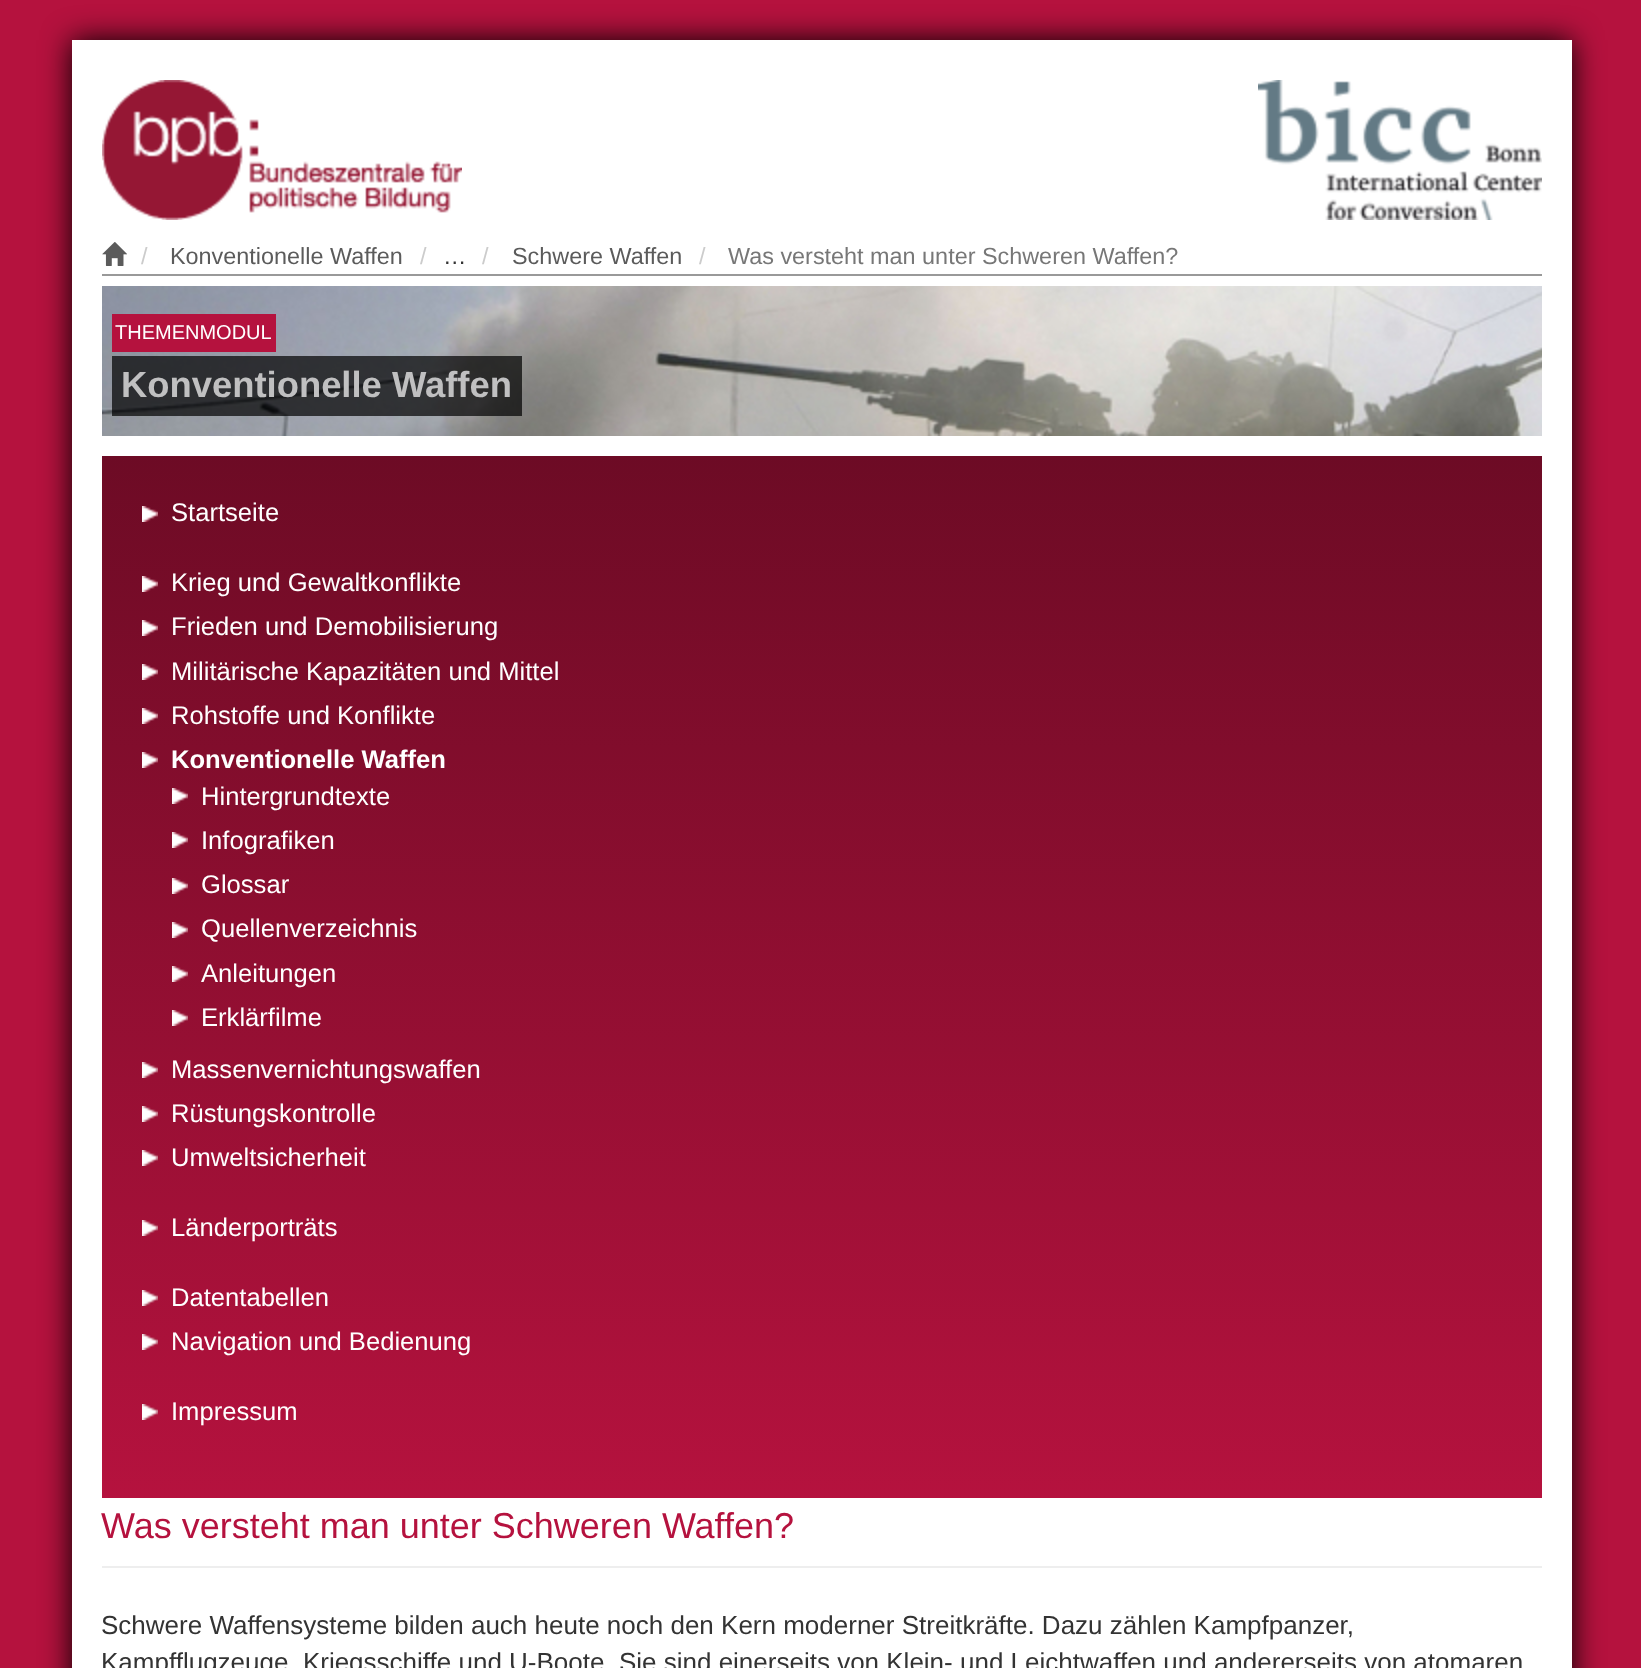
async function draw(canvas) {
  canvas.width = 1641;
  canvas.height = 1668;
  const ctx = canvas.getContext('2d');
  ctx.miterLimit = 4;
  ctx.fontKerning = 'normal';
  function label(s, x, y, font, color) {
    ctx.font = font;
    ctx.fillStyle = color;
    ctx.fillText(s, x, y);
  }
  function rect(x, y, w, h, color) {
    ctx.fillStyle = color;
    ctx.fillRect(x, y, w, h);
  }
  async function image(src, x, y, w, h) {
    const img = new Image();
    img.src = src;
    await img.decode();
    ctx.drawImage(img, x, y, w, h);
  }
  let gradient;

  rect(0, 0, 1641, 1668, '#b5123e');
  ctx.fillStyle = '#000';
  ctx.filter = 'blur(15px)';
  ctx.beginPath();
  ctx.rect(72, 40, 1500, 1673);
  ctx.fill();
  ctx.filter = 'none';
  rect(72, 40, 1500, 1628, '#fff');
  await image('assets/img1.png', 102, 80, 360, 140);
  await image('assets/img2.png', 1258, 80, 284, 140);
  rect(102, 274, 1440, 2, '#999');
  await image('assets/img3.png', 102, 242, 25, 24);
  label('/', 141, 264, '23.4px Liberation Sans', '#ccc');
  label('Konventionelle Waffen', 170, 264, '23.4px Liberation Sans', '#5b5b5b');
  label('/', 420, 264, '23.4px Liberation Sans', '#ccc');
  label('…', 443, 264, '23.4px Liberation Sans', '#333');
  label('/', 482, 264, '23.4px Liberation Sans', '#ccc');
  label('Schwere Waffen', 512, 264, '23.4px Liberation Sans', '#5b5b5b');
  label('/', 699, 264, '23.4px Liberation Sans', '#ccc');
  label('Was versteht man unter Schweren Waffen?', 728, 264, '23.4px Liberation Sans', '#777');
  await image('assets/img4.png', 102, 286, 1440, 150);
  rect(112, 314, 164, 38, '#b5123e');
  label('THEMENMODUL', 115, 339, '20px Liberation Sans', '#fff');
  rect(112, 356, 410, 60, '#000000b3');
  label('Konventionelle Waffen', 121, 397, 'bold 36.4px Liberation Sans', '#c0c0c1');
  gradient = ctx.createLinearGradient(822, 456, 822, 1498);
  gradient.addColorStop(0, '#6d0b25');
  gradient.addColorStop(1, '#b5123e');
  ctx.fillStyle = gradient;
  ctx.fillRect(102, 456, 1440, 1042);
  await image('assets/img5.png', 142, 506, 16, 16);
  label('Startseite', 171, 521, '25.6px Liberation Sans', '#fff');
  await image('assets/img6.png', 142, 576, 16, 16);
  label('Krieg und Gewaltkonflikte', 171, 591, '25.6px Liberation Sans', '#fff');
  await image('assets/img7.png', 142, 620, 16, 16);
  label('Frieden und Demobilisierung', 171, 635, '25.6px Liberation Sans', '#fff');
  await image('assets/img8.png', 142, 664, 16, 16);
  label('Militärische Kapazitäten und Mittel', 171, 680, '25.6px Liberation Sans', '#fff');
  await image('assets/img9.png', 142, 708, 16, 16);
  label('Rohstoffe und Konflikte', 171, 724, '25.6px Liberation Sans', '#fff');
  await image('assets/img10.png', 142, 752, 16, 16);
  label('Konventionelle Waffen', 171, 768, 'bold 25.6px Liberation Sans', '#fff');
  await image('assets/img11.png', 172, 788, 16, 16);
  label('Hintergrundtexte', 201, 805, '25.6px Liberation Sans', '#fff');
  await image('assets/img12.png', 172, 832, 16, 16);
  label('Infografiken', 201, 849, '25.6px Liberation Sans', '#fff');
  await image('assets/img13.png', 172, 878, 16, 16);
  label('Glossar', 201, 893, '25.6px Liberation Sans', '#fff');
  await image('assets/img14.png', 172, 922, 16, 16);
  label('Quellenverzeichnis', 201, 937, '25.6px Liberation Sans', '#fff');
  await image('assets/img15.png', 172, 966, 16, 16);
  label('Anleitungen', 201, 982, '25.6px Liberation Sans', '#fff');
  await image('assets/img16.png', 172, 1010, 16, 16);
  label('Erklärfilme', 201, 1026, '25.6px Liberation Sans', '#fff');
  await image('assets/img17.png', 142, 1062, 16, 16);
  label('Massenvernichtungswaffen', 171, 1078, '25.6px Liberation Sans', '#fff');
  await image('assets/img18.png', 142, 1106, 16, 16);
  label('Rüstungskontrolle', 171, 1122, '25.6px Liberation Sans', '#fff');
  await image('assets/img19.png', 142, 1150, 16, 16);
  label('Umweltsicherheit', 171, 1166, '25.6px Liberation Sans', '#fff');
  await image('assets/img20.png', 142, 1220, 16, 16);
  label('Länderporträts', 171, 1236, '25.6px Liberation Sans', '#fff');
  await image('assets/img21.png', 142, 1290, 16, 16);
  label('Datentabellen', 171, 1306, '25.6px Liberation Sans', '#fff');
  await image('assets/img22.png', 142, 1334, 16, 16);
  label('Navigation und Bedienung', 171, 1350, '25.6px Liberation Sans', '#fff');
  await image('assets/img23.png', 142, 1404, 16, 16);
  label('Impressum', 171, 1420, '25.6px Liberation Sans', '#fff');
  rect(102, 1566, 1440, 2, '#eee');
  label('Was versteht man unter Schweren Waffen?', 101, 1538, '36px Liberation Sans', '#b5123e');
  label('Schwere Waffensysteme bilden auch heute noch den Kern moderner Streitkräfte. Dazu zählen Kampfpanzer,', 101, 1634, '26px Liberation Sans', '#333');
  label('Kampfflugzeuge, Kriegsschiffe und U-Boote. Sie sind einerseits von Klein- und Leichtwaffen und andererseits von atomaren', 101, 1671, '26px Liberation Sans', '#333');
}

draw(document.querySelector('canvas'));
